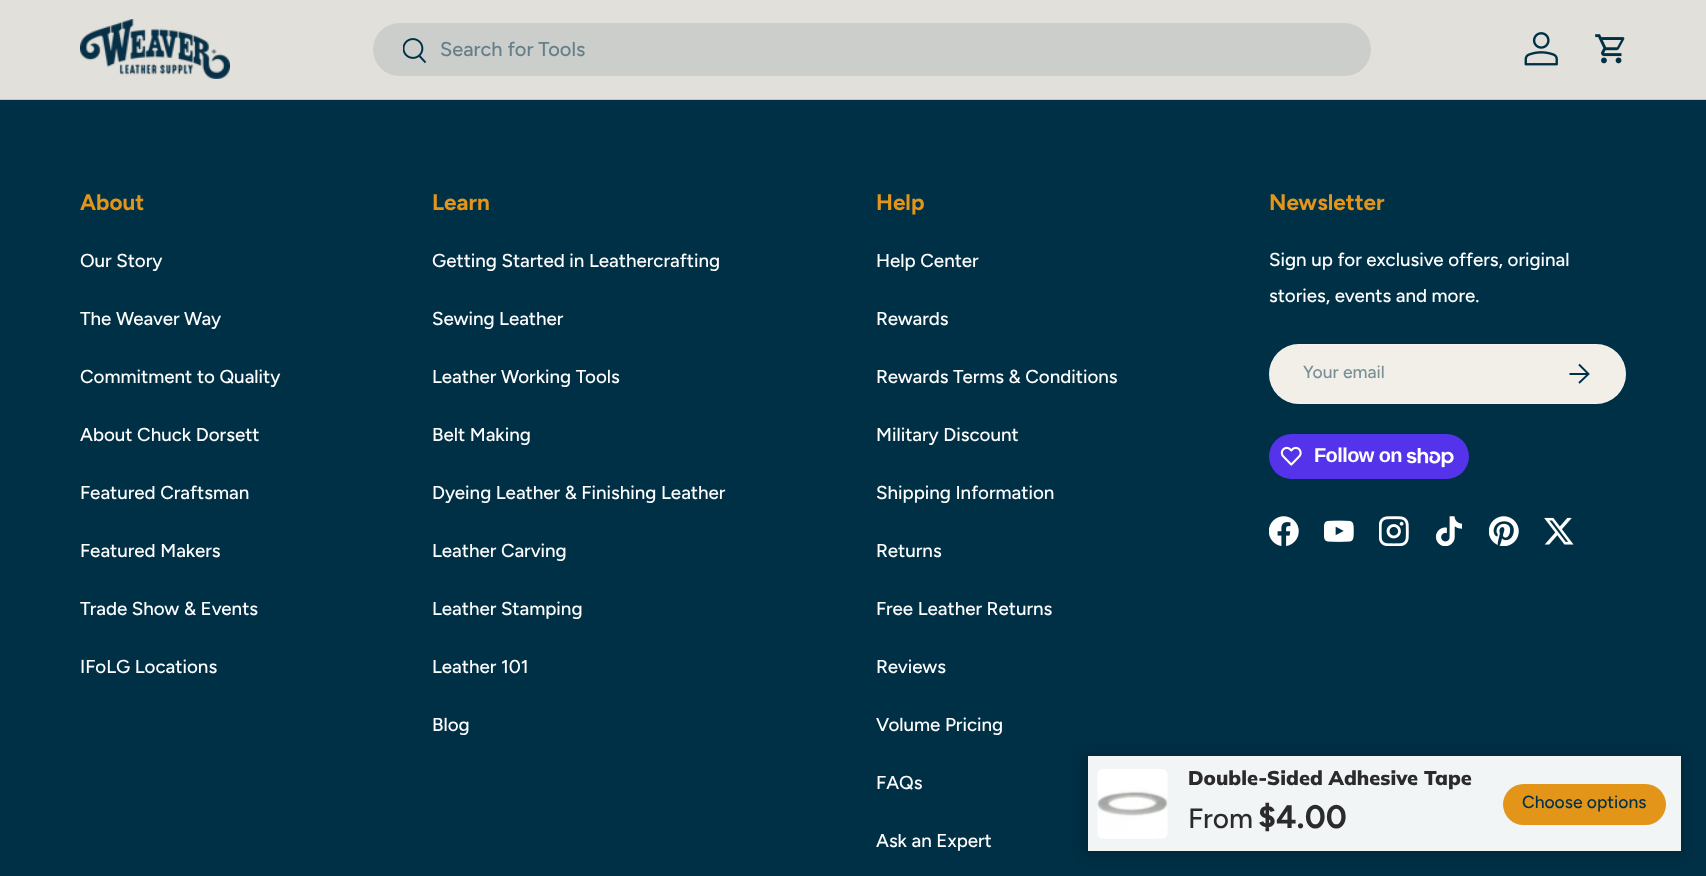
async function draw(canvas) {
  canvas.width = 1706;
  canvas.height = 876;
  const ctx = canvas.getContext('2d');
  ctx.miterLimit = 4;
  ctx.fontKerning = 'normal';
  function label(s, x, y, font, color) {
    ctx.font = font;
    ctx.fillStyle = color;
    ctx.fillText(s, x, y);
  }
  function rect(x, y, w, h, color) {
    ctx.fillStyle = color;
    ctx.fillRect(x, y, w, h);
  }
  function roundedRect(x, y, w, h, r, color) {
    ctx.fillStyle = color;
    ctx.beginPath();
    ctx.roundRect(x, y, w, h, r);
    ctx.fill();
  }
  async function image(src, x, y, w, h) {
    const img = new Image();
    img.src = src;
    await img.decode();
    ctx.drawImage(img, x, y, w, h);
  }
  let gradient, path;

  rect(0, 0, 1706, 876, '#003046');
  rect(0, 0, 1706, 99, '#e2e0da');
  rect(0, 99, 1706, 1, '#c0c6c4');
  await image('assets/img1.png', 80, 19, 150, 60);
  roundedRect(373, 23, 998, 53, 26.5, '#cbcecb');
  await image('assets/img2.png', 403, 38, 24, 26);
  label('Search for Tools', 440, 56, '500 20px Figtree', '#667f89');
  await image('assets/img3.png', 1524, 32, 34, 34);
  await image('assets/img4.png', 1595, 34, 30, 30);
  label('About', 80, 210, 'bold 22.5px Figtree', '#e29518');
  label('Our Story', 80, 267, '500 18.75px Figtree', '#fff');
  label('The Weaver Way', 80, 325, '500 18.75px Figtree', '#fff');
  label('Commitment to Quality', 80, 383, '500 18.75px Figtree', '#fff');
  label('About Chuck Dorsett', 80, 441, '500 18.75px Figtree', '#fff');
  label('Featured Craftsman', 80, 499, '500 18.75px Figtree', '#fff');
  label('Featured Makers', 80, 557, '500 18.75px Figtree', '#fff');
  label('Trade Show & Events', 80, 615, '500 18.75px Figtree', '#fff');
  label('IFoLG Locations', 80, 673, '500 18.75px Figtree', '#fff');
  label('Learn', 432, 210, 'bold 22.5px Figtree', '#e29518');
  label('Getting Started in Leathercrafting', 432, 267, '500 18.75px Figtree', '#fff');
  label('Sewing Leather', 432, 325, '500 18.75px Figtree', '#fff');
  label('Leather Working Tools', 432, 383, '500 18.75px Figtree', '#fff');
  label('Belt Making', 432, 441, '500 18.75px Figtree', '#fff');
  label('Dyeing Leather & Finishing Leather', 432, 499, '500 18.75px Figtree', '#fff');
  label('Leather Carving', 432, 557, '500 18.75px Figtree', '#fff');
  label('Leather Stamping', 432, 615, '500 18.75px Figtree', '#fff');
  label('Leather 101', 432, 673, '500 18.75px Figtree', '#fff');
  label('Blog', 432, 731, '500 18.75px Figtree', '#fff');
  label('Help', 876, 210, 'bold 22.5px Figtree', '#e29518');
  label('Help Center', 876, 267, '500 18.75px Figtree', '#fff');
  label('Rewards', 876, 325, '500 18.75px Figtree', '#fff');
  label('Rewards Terms & Conditions', 876, 383, '500 18.75px Figtree', '#fff');
  label('Military Discount', 876, 441, '500 18.75px Figtree', '#fff');
  label('Shipping Information', 876, 499, '500 18.75px Figtree', '#fff');
  label('Returns', 876, 557, '500 18.75px Figtree', '#fff');
  label('Free Leather Returns', 876, 615, '500 18.75px Figtree', '#fff');
  label('Reviews', 876, 673, '500 18.75px Figtree', '#fff');
  label('Volume Pricing', 876, 731, '500 18.75px Figtree', '#fff');
  label('FAQs', 876, 789, '500 18.75px Figtree', '#fff');
  label('Ask an Expert', 876, 847, '500 18.75px Figtree', '#fff');
  label('Newsletter', 1269, 210, 'bold 22.5px Figtree', '#e29518');
  label('Sign up for exclusive offers, original', 1269, 266, '500 18.75px Figtree', '#fff');
  label('stories, events and more.', 1269, 302, '500 18.75px Figtree', '#fff');
  roundedRect(1269, 344, 357, 60, 30, '#f2efe8');
  ctx.beginPath();
  ctx.roundRect(1269.5, 344.5, 356, 59, 29.5);
  ctx.strokeStyle = '#ffffff33';
  ctx.stroke();
  label('Your email', 1303, 378, '500 17.5px Figtree', '#799097');
  path = new Path2D('M1569.5 374H1588M1579 364.5L1588.5 374L1579 383');
  ctx.strokeStyle = '#003046';
  ctx.lineWidth = 1.9;
  ctx.stroke(path);
  roundedRect(1269, 434, 200, 45, 22.5, '#5433eb');
  await image('assets/img5.png', 1280, 446, 22, 20);
  ctx.letterSpacing = '-0.6px';
  label('Follow on', 1314, 462, 'bold 20px Liberation Sans', '#fff');
  await image('assets/img6.png', 1406, 448, 48, 20);
  await image('assets/img7.png', 1269, 516, 30, 30);
  await image('assets/img8.png', 1324, 520, 30, 22);
  await image('assets/img9.png', 1379, 516, 30, 30);
  await image('assets/img10.png', 1435, 516, 27, 30);
  await image('assets/img11.png', 1489, 516, 30, 30);
  await image('assets/img12.png', 1544, 517, 30, 28);
  ctx.fillStyle = '#00000033';
  ctx.filter = 'blur(6px)';
  ctx.beginPath();
  ctx.rect(1083, 755, 598, 100);
  ctx.fill();
  ctx.filter = 'none';
  rect(1088, 756, 593, 95, '#f2f5f6');
  await image('assets/img13.png', 1097, 769, 71, 70);
  ctx.letterSpacing = '0px';
  label('Double-Sided Adhesive Tape', 1188, 785, '900 20px Muli', '#2a2b2a');
  label('From', 1188, 828, '500 28px Figtree', '#2a2b2a');
  label('$4.00', 1258, 828, 'bold 32.5px Figtree', '#2a2b2a');
  gradient = ctx.createLinearGradient(1185, 746, 1657, 863);
  gradient.addColorStop(0.6, '#00304612');
  gradient.addColorStop(0.6, '#e29518');
  gradient.addColorStop(1, '#e29518');
  ctx.fillStyle = gradient;
  ctx.beginPath();
  ctx.roundRect(1503, 784, 163, 41, 20.5);
  ctx.fill();
  label('Choose options', 1522, 808, '500 17.5px Figtree', '#003046');
}

draw(document.querySelector('canvas'));
